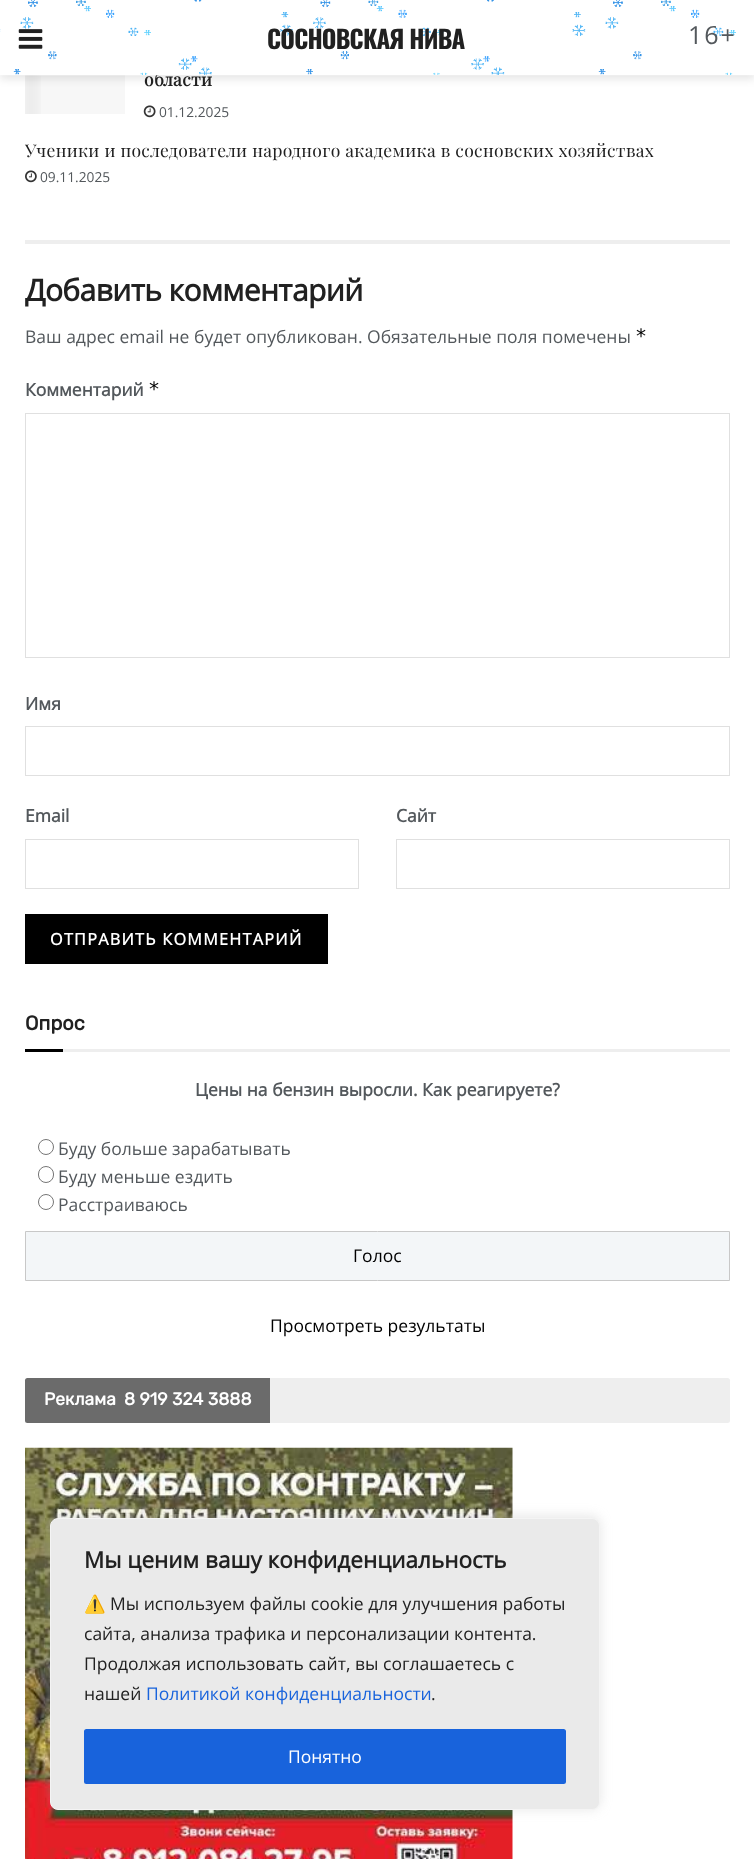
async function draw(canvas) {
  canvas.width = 754;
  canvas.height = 1859;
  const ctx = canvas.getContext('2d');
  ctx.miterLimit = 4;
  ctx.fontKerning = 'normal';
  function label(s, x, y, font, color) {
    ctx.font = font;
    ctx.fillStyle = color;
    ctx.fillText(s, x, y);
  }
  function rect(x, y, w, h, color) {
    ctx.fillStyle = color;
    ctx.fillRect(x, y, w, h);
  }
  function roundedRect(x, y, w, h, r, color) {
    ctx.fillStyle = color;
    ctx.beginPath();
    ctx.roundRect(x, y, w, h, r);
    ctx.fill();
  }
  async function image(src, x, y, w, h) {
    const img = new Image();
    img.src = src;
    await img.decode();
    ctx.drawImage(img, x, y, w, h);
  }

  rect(0, 0, 754, 1859, '#fff');
  rect(41, 75, 84, 39, '#f7f7f7');
  await image('assets/img3.png', 25, 75, 16, 39);
  ctx.fillStyle = '#0000001a';
  ctx.filter = 'blur(4px)';
  ctx.beginPath();
  ctx.rect(0, 3, 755, 76);
  ctx.fill();
  ctx.filter = 'none';
  ctx.letterSpacing = '0.35px';
  label('области', 144, 86, 'bold 17.5px Playfair Display', '#212121');
  rect(0, 75, 754, 1, '#ffffff33');
  rect(25, 75, 133, 1, '#ffffff26');
  rect(0, 0, 754, 75, '#fff');
  await image('assets/img1.png', 0, 0, 736, 75);
  await image('assets/img2.png', 18, 29, 25, 20);
  ctx.letterSpacing = '-0.8px';
  label('СОСНОВСКАЯ НИВА', 267, 49, 'bold 25px Oswald', '#212121');
  ctx.letterSpacing = '2px';
  label('16+', 688, 44, '25px Open Sans', '#53585c');
  await image('assets/img4.png', 143, 105, 13, 13);
  ctx.letterSpacing = '0px';
  label('01.12.2025', 159, 117, '13.75px Open Sans', '#53585c');
  ctx.letterSpacing = '0.35px';
  label('Ученики и последователи народного академика в сосновских хозяйствах', 25, 157, '17.5px Playfair Display', '#212121');
  await image('assets/img5.png', 25, 170, 12, 13);
  ctx.letterSpacing = '0px';
  label('09.11.2025', 40, 182, '13.75px Open Sans', '#53585c');
  rect(25, 240, 705, 4, '#eee');
  ctx.letterSpacing = '-0.6px';
  label('Добавить комментарий', 25, 301, 'bold 30px Open Sans', '#212121');
  ctx.letterSpacing = '0px';
  label('Ваш адрес email не будет опубликован. Обязательные поля помечены', 25, 343, '17.5px Open Sans', '#53585c');
  label('*', 635, 343, '20px DejaVu Sans Mono', '#000');
  label('Комментарий', 25, 396, 'bold 17.5px Open Sans', '#53585c');
  label('*', 148, 396, '20px DejaVu Sans Mono', '#000');
  ctx.strokeStyle = '#e0e0e0';
  ctx.strokeRect(25.5, 413.5, 704, 244);
  label('Имя', 25, 710, 'bold 17.5px Open Sans', '#53585c');
  ctx.strokeRect(25.5, 726.5, 704, 49);
  label('Email', 25, 822, 'bold 17.5px Open Sans', '#53585c');
  ctx.strokeRect(25.5, 839.5, 333, 49);
  label('Сайт', 396, 822, 'bold 17.5px Open Sans', '#53585c');
  ctx.strokeRect(396.5, 839.5, 333, 49);
  rect(25, 914, 303, 50, '#000');
  ctx.letterSpacing = '1.25px';
  label('ОТПРАВИТЬ КОММЕНТАРИЙ', 50, 945, 'bold 16.25px Open Sans', '#fff');
  rect(63, 1049, 667, 3, '#eee');
  ctx.letterSpacing = '0px';
  label('Опрос', 25, 1030, 'bold 20px Rubik', '#212121');
  rect(25, 1049, 38, 3, '#000');
  label('Цены на бензин выросли. Как реагируете?', 195, 1096, 'bold 17.5px Open Sans', '#53585c');
  ctx.beginPath();
  ctx.arc(46, 1147, 7.5, 0, 2 * Math.PI);
  ctx.strokeStyle = '#767676';
  ctx.stroke();
  label('Буду больше зарабатывать', 58, 1155, '17.5px Open Sans', '#53585c');
  ctx.beginPath();
  ctx.roundRect(38.5, 1166.5, 15, 16, 7.5);
  ctx.stroke();
  label('Буду меньше ездить', 58, 1183, '17.5px Open Sans', '#53585c');
  ctx.beginPath();
  ctx.arc(46, 1202, 7.5, 0, 2 * Math.PI);
  ctx.stroke();
  label('Расстраиваюсь', 58, 1211, '17.5px Open Sans', '#53585c');
  ctx.fillStyle = '#f3f6f8';
  ctx.beginPath();
  ctx.rect(25.5, 1231.5, 704, 49);
  ctx.fill();
  ctx.strokeStyle = '#c8c8c8';
  ctx.stroke();
  label('Голос', 353, 1262, '17.5px Open Sans', '#000');
  label('Просмотреть результаты', 270, 1332, '17.5px Open Sans', '#000');
  roundedRect(25, 1378, 705, 45, 2.5, '#eee');
  ctx.fillStyle = '#6b6b6b';
  ctx.beginPath();
  ctx.roundRect(25, 1378, 245, 45, [2.5, 0, 0, 2.5]);
  ctx.fill();
  label('Реклама', 44, 1405, 'bold 17.5px Rubik', '#fff');
  label('8 919 324 3888', 124, 1405, 'bold 17.5px Rubik', '#fff');
  await image('assets/img6.png', 25, 1447, 488, 412);
  ctx.fillStyle = '#acabab4d';
  ctx.filter = 'blur(6px)';
  ctx.beginPath();
  ctx.roundRect(50, 1516, 550, 293, 8);
  ctx.fill();
  ctx.filter = 'none';
  ctx.fillStyle = '#eaeaea';
  ctx.beginPath();
  ctx.roundRect(50.5, 1518.5, 549, 291, 7.5);
  ctx.fill();
  ctx.strokeStyle = '#f4f4f4';
  ctx.stroke();
  label('Мы ценим вашу конфиденциальность', 84, 1568, 'bold 22.5px Open Sans', '#212121');
  label('⚠️', 84, 1610, '17.5px Noto Color Emoji', '#212121');
  label('Мы используем файлы cookie для улучшения работы', 110, 1610, '17.5px Open Sans', '#212121');
  label('сайта, анализа трафика и персонализации контента.', 84, 1640, '17.5px Open Sans', '#212121');
  label('Продолжая использовать сайт, вы соглашаетесь с', 84, 1670, '17.5px Open Sans', '#212121');
  label('нашей', 84, 1700, '17.5px Open Sans', '#212121');
  label('Политикой конфиденциальности', 146, 1700, '17.5px Open Sans', '#1863dc');
  label('.', 431, 1700, '17.5px Open Sans', '#212121');
  ctx.fillStyle = '#1863dc';
  ctx.beginPath();
  ctx.roundRect(85.5, 1730.5, 479, 52, 1);
  ctx.fill();
  ctx.strokeStyle = '#1863dc';
  ctx.lineWidth = 3;
  ctx.stroke();
  label('Понятно', 288, 1763, '17.5px Open Sans', '#fff');
}

draw(document.querySelector('canvas'));
